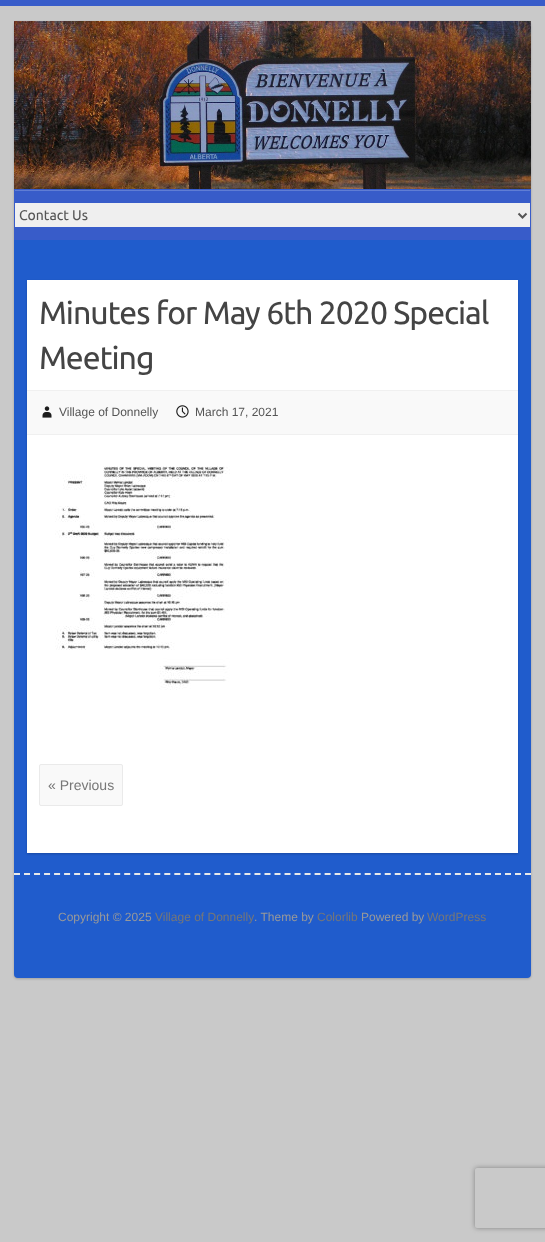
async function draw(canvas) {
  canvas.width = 545;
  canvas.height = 1242;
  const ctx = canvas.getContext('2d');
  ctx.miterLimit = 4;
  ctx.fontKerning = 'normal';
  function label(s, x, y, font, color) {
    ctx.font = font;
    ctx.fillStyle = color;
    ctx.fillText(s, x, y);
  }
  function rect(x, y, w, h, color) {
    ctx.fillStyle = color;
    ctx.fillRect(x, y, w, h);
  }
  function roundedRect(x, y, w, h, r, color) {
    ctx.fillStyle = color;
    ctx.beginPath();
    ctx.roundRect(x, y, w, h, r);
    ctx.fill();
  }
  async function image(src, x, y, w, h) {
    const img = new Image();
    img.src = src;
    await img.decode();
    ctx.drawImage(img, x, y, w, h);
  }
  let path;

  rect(0, 0, 545, 1242, '#c9c9c9');
  rect(0, 0, 545, 6, '#385cc9');
  ctx.fillStyle = '#00000033';
  ctx.filter = 'blur(1px)';
  ctx.beginPath();
  ctx.roundRect(14, 22, 517, 957, 4);
  ctx.fill();
  ctx.filter = 'none';
  roundedRect(14, 21, 517, 957, 4, '#205ccc');
  await image('assets/img1.png', 14, 21, 517, 168);
  rect(14, 189, 517, 51, '#385cc9');
  rect(15, 190, 515, 1, '#607dd4');
  rect(15, 203, 515, 24, '#efefef');
  path = new Path2D('M518.5 213.5L522.5 217.5L526.5 213.5');
  ctx.strokeStyle = '#555';
  ctx.lineWidth = 2;
  ctx.stroke(path);
  label('Contact Us', 19, 220, '14px Ubuntu', '#555');
  ctx.fillStyle = '#00000033';
  ctx.filter = 'blur(1px)';
  ctx.beginPath();
  ctx.rect(27, 281, 491, 573);
  ctx.fill();
  ctx.filter = 'none';
  rect(27, 280, 491, 573, '#fff');
  ctx.letterSpacing = '-1px';
  label('Minutes for May 6th 2020 Special', 39, 324, '32px Ubuntu', '#444');
  label('Meeting', 39, 369, '32px Ubuntu', '#444');
  rect(27, 391, 491, 43, '#f9f9f9');
  rect(27, 390, 491, 1, '#f0f0f0');
  rect(27, 434, 491, 1, '#f0f0f0');
  await image('assets/img2.png', 42, 406, 10, 12);
  ctx.letterSpacing = '0px';
  label('Village of Donnelly', 59, 416, '12px Liberation Sans', '#555');
  await image('assets/img3.png', 176, 405, 13, 13);
  label('March 17, 2021', 195, 416, '12px Liberation Sans', '#555');
  await image('assets/img4.png', 55, 466, 175, 224);
  ctx.fillStyle = '#f9f9f9';
  ctx.beginPath();
  ctx.roundRect(39.5, 764.5, 83, 41, 1.5);
  ctx.fill();
  ctx.strokeStyle = '#eaeaea';
  ctx.lineWidth = 1;
  ctx.stroke();
  label('« Previous', 48, 790, '14px Liberation Sans', '#777');
  path = new Path2D('M14 874H531');
  ctx.lineWidth = 2;
  ctx.setLineDash([6, 4.02]);
  ctx.stroke(path);
  label('Copyright © 2025', 58, 921, '12px Liberation Sans', '#999');
  label('Village of Donnelly', 155, 921, '12px Liberation Sans', '#777');
  label('. Theme by', 254, 921, '12px Liberation Sans', '#999');
  label('Colorlib', 317, 921, '12px Liberation Sans', '#777');
  label('Powered by', 361, 921, '12px Liberation Sans', '#999');
  label('WordPress', 427, 921, '12px Liberation Sans', '#777');
  ctx.save();
  path = new Path2D('M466 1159H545V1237H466ZM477 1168H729C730 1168 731 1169 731 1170V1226C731 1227 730 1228 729 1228H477C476 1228 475 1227 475 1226V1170C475 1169 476 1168 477 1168Z');
  ctx.clip(path, 'evenodd');
  ctx.fillStyle = '#808080';
  ctx.filter = 'blur(2.5px)';
  ctx.beginPath();
  ctx.roundRect(475, 1168, 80, 60, 2);
  ctx.fill();
  ctx.filter = 'none';
  ctx.restore();
}

draw(document.querySelector('canvas'));
